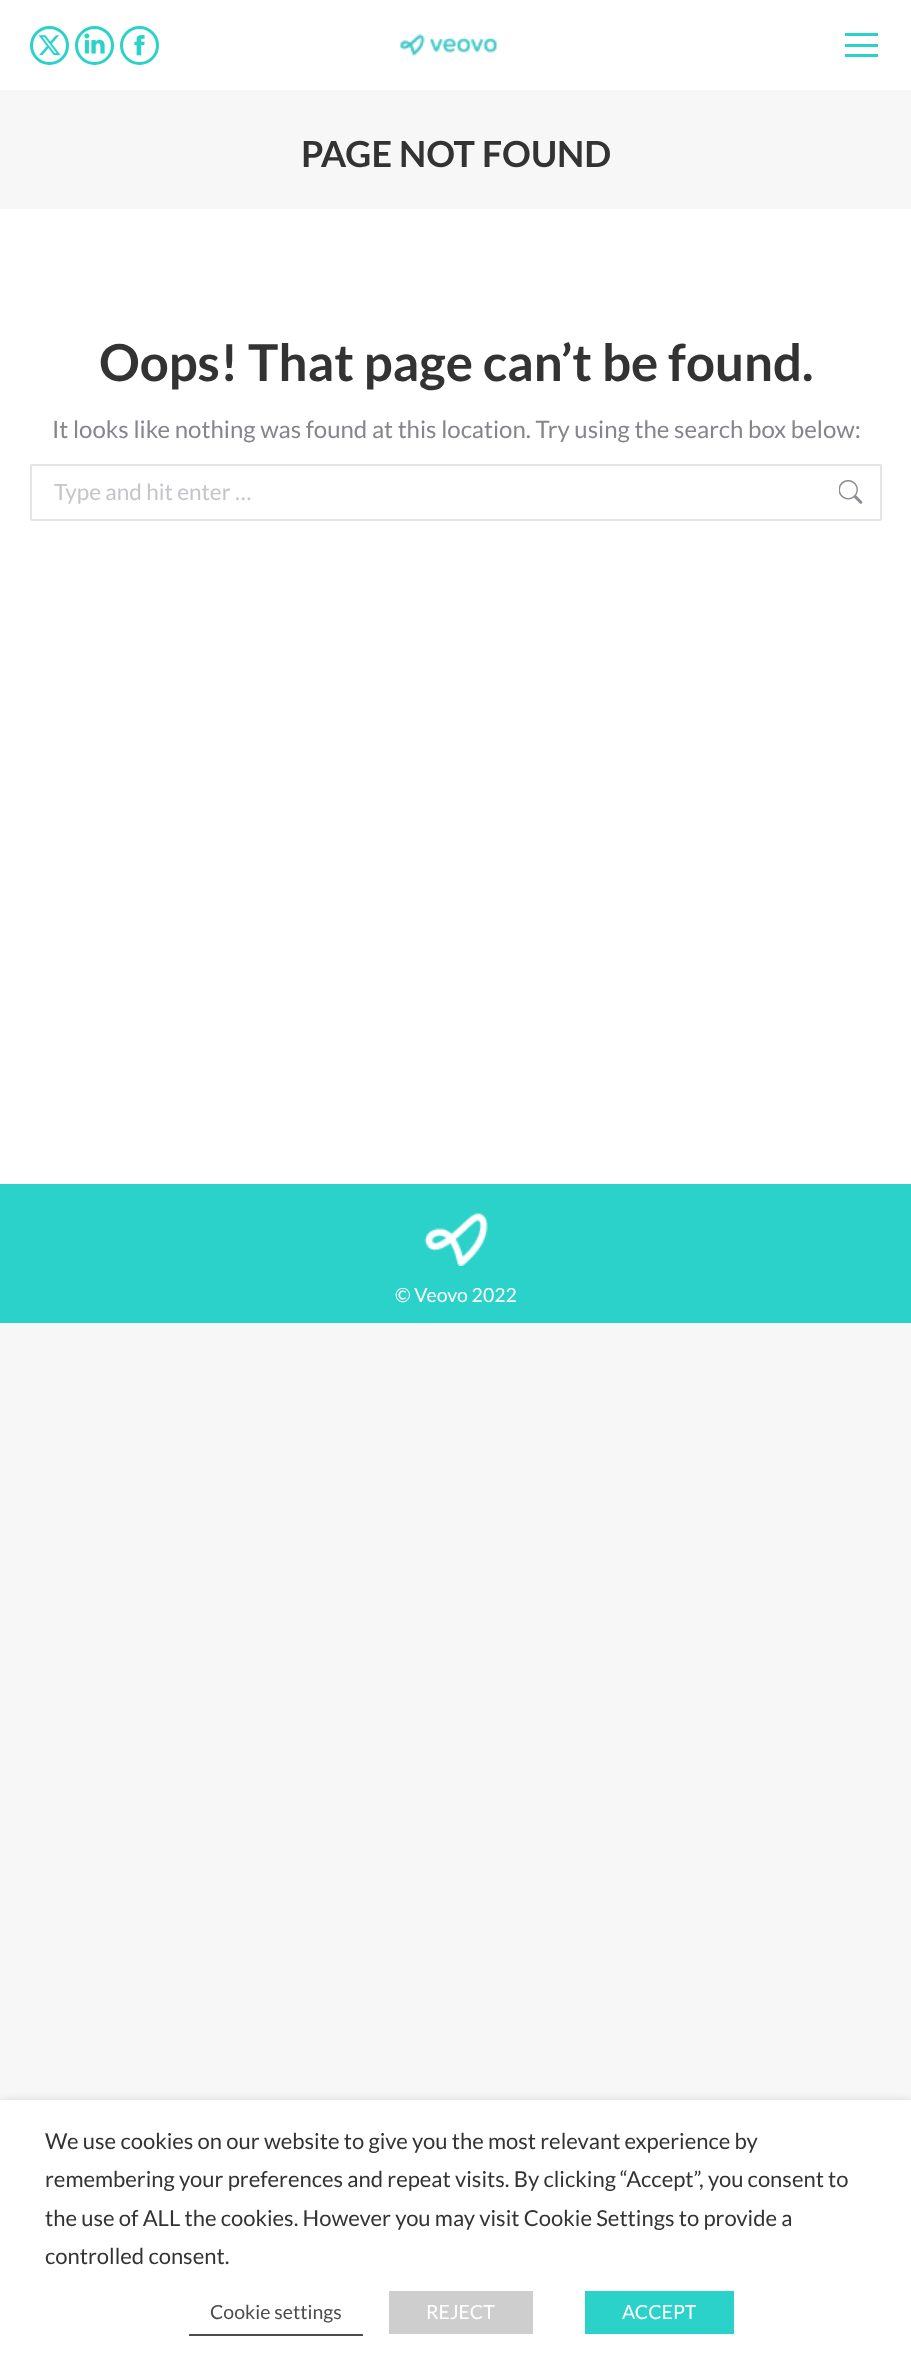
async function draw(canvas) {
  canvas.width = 911;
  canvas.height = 2373;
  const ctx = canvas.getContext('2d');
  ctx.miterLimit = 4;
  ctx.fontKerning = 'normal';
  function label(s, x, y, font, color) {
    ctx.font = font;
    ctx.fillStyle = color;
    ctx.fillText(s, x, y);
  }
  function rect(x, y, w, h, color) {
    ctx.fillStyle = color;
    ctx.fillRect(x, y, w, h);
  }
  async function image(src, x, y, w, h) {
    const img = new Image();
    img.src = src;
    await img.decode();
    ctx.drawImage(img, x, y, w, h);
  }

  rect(0, 0, 911, 2373, '#f7f7f7');
  rect(0, 0, 911, 1184, '#fff');
  ctx.beginPath();
  ctx.arc(49.5, 45.5, 18, 0, 2 * Math.PI);
  ctx.strokeStyle = '#2ad2c9';
  ctx.lineWidth = 3;
  ctx.stroke();
  await image('assets/img1.png', 38, 35, 23, 21);
  ctx.beginPath();
  ctx.arc(94.5, 45.5, 18, 0, 2 * Math.PI);
  ctx.stroke();
  await image('assets/img2.png', 84, 33, 21, 21);
  ctx.beginPath();
  ctx.arc(139.5, 45.5, 18, 0, 2 * Math.PI);
  ctx.stroke();
  await image('assets/img3.png', 134, 35, 11, 21);
  await image('assets/img4.png', 400, 34, 97, 22);
  rect(845, 33, 33, 3, '#2ad2c9');
  rect(845, 44, 33, 3, '#2ad2c9');
  rect(845, 54, 33, 3, '#2ad2c9');
  rect(0, 90, 911, 119, '#f7f7f7');
  label('PAGE NOT FOUND', 301, 167, 'bold 36px Lato', '#333');
  label('Oops! That page can’t be found.', 99, 381, 'bold 51px Lato', '#333');
  label('It looks like nothing was found at this location. Try using the search box below:', 52, 438, '24px Lato', '#85868c');
  ctx.beginPath();
  ctx.roundRect(31, 465, 850, 55, 0.5);
  ctx.strokeStyle = '#e5e5e5';
  ctx.lineWidth = 2;
  ctx.stroke();
  label('Type and hit enter …', 54, 500, '22.5px Lato', '#c4c5c9');
  await image('assets/img5.png', 839, 480, 24, 24);
  rect(0, 1184, 911, 139, '#2ad2c9');
  await image('assets/img6.png', 424, 1213, 64, 53);
  label('© Veovo 2022', 395, 1302, '19.5px Lato', '#fff');
  ctx.fillStyle = '#00000080';
  ctx.filter = 'blur(7.5px)';
  ctx.beginPath();
  ctx.rect(0, 2108, 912, 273);
  ctx.fill();
  ctx.filter = 'none';
  rect(0, 2100, 911, 273, '#fff');
  label('We use cookies on our website to give you the most relevant experience by', 45, 2149, '22px Lato', '#333');
  label('remembering your preferences and repeat visits. By clicking “Accept”, you consent to', 45, 2187, '22px Lato', '#333');
  label('the use of ALL the cookies. However you may visit Cookie Settings to provide a', 45, 2226, '22px Lato', '#333');
  label('controlled consent.', 45, 2264, '22px Lato', '#333');
  rect(189, 2334, 174, 2, '#4c4c4c');
  label('Cookie settings', 210, 2319, '19.5px Lato', '#4c4c4c');
  rect(389, 2291, 144, 43, '#cecece');
  label('REJECT', 426, 2319, '19.5px Lato', '#fff');
  rect(585, 2291, 149, 43, '#2ad2c9');
  label('ACCEPT', 622, 2319, '19.5px Lato', '#fff');
}

draw(document.querySelector('canvas'));
